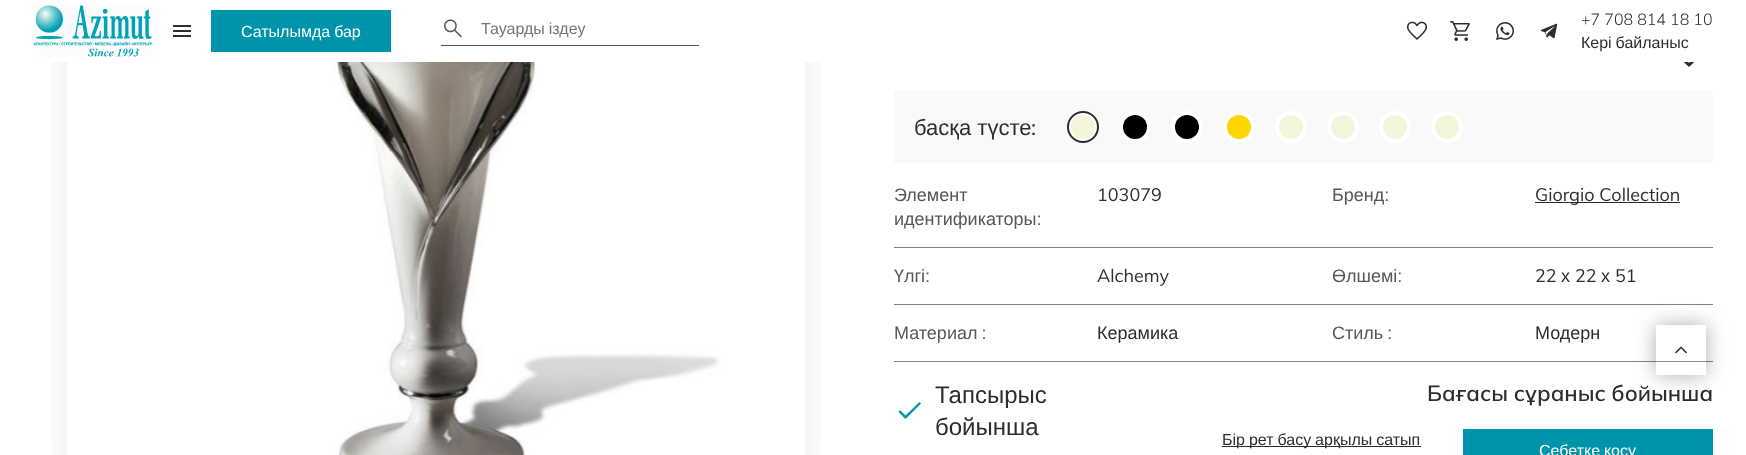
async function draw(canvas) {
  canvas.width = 1746;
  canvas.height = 455;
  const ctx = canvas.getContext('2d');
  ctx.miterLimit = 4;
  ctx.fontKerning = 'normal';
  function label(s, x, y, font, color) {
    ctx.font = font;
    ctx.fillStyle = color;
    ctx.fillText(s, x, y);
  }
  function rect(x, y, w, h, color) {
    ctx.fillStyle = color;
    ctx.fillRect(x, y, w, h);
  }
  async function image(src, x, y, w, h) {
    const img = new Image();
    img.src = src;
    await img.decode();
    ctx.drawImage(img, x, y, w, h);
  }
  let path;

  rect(0, 0, 1746, 455, '#fff');
  await image('assets/img1.png', 33, 5, 120, 52);
  rect(173, 25, 18, 2, '#2d2d2d');
  rect(173, 30, 18, 2, '#2d2d2d');
  rect(173, 35, 18, 2, '#2d2d2d');
  rect(211, 10, 180, 42, '#0094aa');
  ctx.wordSpacing = '-0.5px';
  label('Сатылымда бар', 241, 37, '16px Liberation Sans', '#fff');
  await image('assets/img2.png', 444, 19, 18, 19);
  rect(441, 45, 258, 1, '#575757');
  label('Тауарды іздеу', 481, 34, '16px Liberation Sans', '#757575');
  await image('assets/img3.png', 1407, 21, 20, 19);
  await image('assets/img4.png', 1450, 21, 20, 20);
  await image('assets/img5.png', 1496, 22, 18, 18);
  await image('assets/img6.png', 1540, 23, 18, 16);
  ctx.wordSpacing = '0px';
  label('+7 708 814 18 10', 1581, 25, '300 16px Mulish', '#2d2d2d');
  ctx.wordSpacing = '-0.5px';
  label('Кері байланыс', 1581, 48, '16px Liberation Sans', '#2d2d2d');
  await image('assets/img7.png', 51, 62, 770, 393);
  await image('assets/img8.png', 1683, 62, 12, 5);
  rect(894, 91, 819, 72, '#f9f9f9');
  ctx.wordSpacing = '0px';
  label('басқа түсте', 914, 135, '22px Liberation Sans', '#2d2d2d');
  label(':', 1031, 135, '22px Mulish', '#2d2d2d');
  ctx.fillStyle = '#fff';
  ctx.beginPath();
  ctx.arc(1083, 127, 15, 0, 2 * Math.PI);
  ctx.fill();
  ctx.strokeStyle = '#2d2d2d';
  ctx.lineWidth = 2;
  ctx.stroke();
  ctx.fillStyle = '#f5f5dc';
  ctx.beginPath();
  ctx.arc(1083, 127, 12, 0, 2 * Math.PI);
  ctx.fill();
  ctx.fillStyle = '#fff';
  ctx.beginPath();
  ctx.arc(1135, 127, 16, 0, 2 * Math.PI);
  ctx.fill();
  ctx.fillStyle = '#000';
  ctx.beginPath();
  ctx.arc(1135, 127, 12, 0, 2 * Math.PI);
  ctx.fill();
  ctx.fillStyle = '#fff';
  ctx.beginPath();
  ctx.arc(1187, 127, 16, 0, 2 * Math.PI);
  ctx.fill();
  ctx.fillStyle = '#000';
  ctx.beginPath();
  ctx.arc(1187, 127, 12, 0, 2 * Math.PI);
  ctx.fill();
  ctx.fillStyle = '#fff';
  ctx.beginPath();
  ctx.arc(1239, 127, 16, 0, 2 * Math.PI);
  ctx.fill();
  ctx.fillStyle = '#ffd700';
  ctx.beginPath();
  ctx.arc(1239, 127, 12, 0, 2 * Math.PI);
  ctx.fill();
  ctx.fillStyle = '#fff';
  ctx.beginPath();
  ctx.arc(1291, 127, 16, 0, 2 * Math.PI);
  ctx.fill();
  ctx.fillStyle = '#f5f5dc';
  ctx.beginPath();
  ctx.arc(1291, 127, 12, 0, 2 * Math.PI);
  ctx.fill();
  ctx.fillStyle = '#fff';
  ctx.beginPath();
  ctx.arc(1343, 127, 16, 0, 2 * Math.PI);
  ctx.fill();
  ctx.fillStyle = '#f5f5dc';
  ctx.beginPath();
  ctx.arc(1343, 127, 12, 0, 2 * Math.PI);
  ctx.fill();
  ctx.fillStyle = '#fff';
  ctx.beginPath();
  ctx.arc(1395, 127, 16, 0, 2 * Math.PI);
  ctx.fill();
  ctx.fillStyle = '#f5f5dc';
  ctx.beginPath();
  ctx.arc(1395, 127, 12, 0, 2 * Math.PI);
  ctx.fill();
  ctx.fillStyle = '#fff';
  ctx.beginPath();
  ctx.arc(1447, 127, 16, 0, 2 * Math.PI);
  ctx.fill();
  ctx.fillStyle = '#f5f5dc';
  ctx.beginPath();
  ctx.arc(1447, 127, 12, 0, 2 * Math.PI);
  ctx.fill();
  rect(894, 247, 819, 1, '#818181');
  label('Элемент', 894, 201, '18px Liberation Sans', '#575757');
  label('идентификаторы:', 894, 225, '18px Liberation Sans', '#575757');
  label('103079', 1097, 201, '18px Mulish', '#2d2d2d');
  label('Бренд:', 1332, 201, '18px Liberation Sans', '#575757');
  rect(1535, 202, 145, 1, '#2d2d2d');
  label('Giorgio Collection', 1535, 201, '18px Mulish', '#2d2d2d');
  rect(894, 304, 819, 1, '#818181');
  label('Үлгі:', 894, 282, '18px Liberation Sans', '#575757');
  label('Alchemy', 1097, 282, '18px Mulish', '#2d2d2d');
  label('Өлшемі:', 1332, 282, '18px Liberation Sans', '#575757');
  label('22', 1535, 282, '18px Mulish', '#2d2d2d');
  label('х', 1561, 282, '18px Liberation Sans', '#2d2d2d');
  label('22', 1575, 282, '18px Mulish', '#2d2d2d');
  label('х', 1601, 282, '18px Liberation Sans', '#2d2d2d');
  label('51', 1615, 282, '18px Mulish', '#2d2d2d');
  rect(894, 361, 819, 1, '#818181');
  ctx.wordSpacing = '-1px';
  label('Материал :', 894, 339, '18px Liberation Sans', '#575757');
  ctx.wordSpacing = '0px';
  label('Керамика', 1097, 339, '18px Liberation Sans', '#2d2d2d');
  rect(1656, 361, 50, 1, '#8e8e8e');
  ctx.wordSpacing = '-1px';
  label('Стиль :', 1332, 339, '18px Liberation Sans', '#575757');
  ctx.wordSpacing = '0px';
  label('Модерн', 1535, 339, '18px Liberation Sans', '#2d2d2d');
  ctx.fillStyle = '#0094aa';
  path = new Path2D('M905.5 415.5L900 410L898.5 412L905.5 419L921 403.5L919.5 402Z');
  ctx.fill(path);
  label('Тапсырыс', 935, 403, '24px Liberation Sans', '#2d2d2d');
  label('бойынша', 935, 435, '24px Liberation Sans', '#2d2d2d');
  label('Бағасы сұраныс бойынша', 1427, 401, '600 22px Mulish', '#2d2d2d');
  rect(1222, 446, 199, 1, '#2d2d2d');
  ctx.wordSpacing = '-0.5px';
  label('Бір рет басу арқылы сатып', 1222, 445, '16px Liberation Sans', '#2d2d2d');
  rect(1463, 429, 250, 26, '#0094aa');
  label('Себетке қосу', 1539, 456, '16px Liberation Sans', '#fff');
  ctx.save();
  path = new Path2D('M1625 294H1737V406H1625ZM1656 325H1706V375H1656Z');
  ctx.clip(path, 'evenodd');
  ctx.fillStyle = '#2d2d2d66';
  ctx.filter = 'blur(10px)';
  ctx.beginPath();
  ctx.rect(1656, 325, 50, 50);
  ctx.fill();
  ctx.filter = 'none';
  ctx.restore();
  await image('assets/img9.png', 1675, 346, 12, 8);
}

draw(document.querySelector('canvas'));
